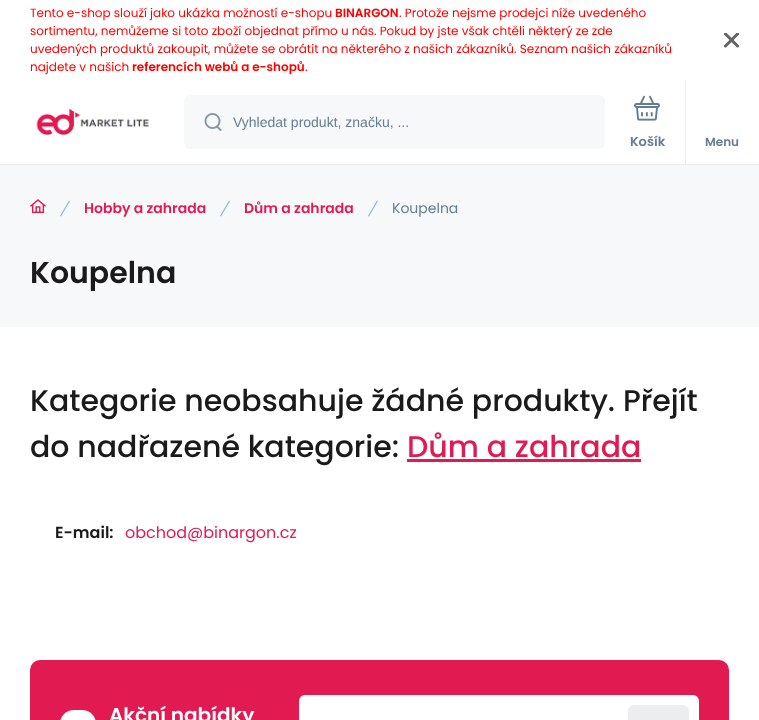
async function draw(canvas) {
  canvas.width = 759;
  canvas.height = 720;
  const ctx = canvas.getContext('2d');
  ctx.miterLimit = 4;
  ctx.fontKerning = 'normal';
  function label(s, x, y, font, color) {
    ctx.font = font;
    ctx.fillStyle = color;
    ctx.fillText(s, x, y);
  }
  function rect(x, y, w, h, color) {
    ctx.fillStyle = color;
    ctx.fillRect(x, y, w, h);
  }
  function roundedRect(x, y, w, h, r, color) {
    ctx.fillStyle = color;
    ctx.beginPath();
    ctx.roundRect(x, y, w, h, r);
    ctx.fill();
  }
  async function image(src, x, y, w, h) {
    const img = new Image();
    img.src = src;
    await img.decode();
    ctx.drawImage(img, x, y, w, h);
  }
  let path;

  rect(0, 0, 759, 720, '#fff');
  label('Tento e-shop slouží jako ukázka možností e-shopu', 30, 17, '12px Poppins', '#f00');
  label('BINARGON', 335, 17, '600 12px Poppins', '#f00');
  label('. Protože nejsme prodejci níže uvedeného', 399, 17, '12px Poppins', '#f00');
  label('sortimentu, nemůžeme si toto zboží objednat přímo u nás. Pokud by jste však chtěli některý ze zde', 30, 35, '12px Poppins', '#f00');
  label('uvedených produktů zakoupit, můžete se obrátit na některého z našich zákazníků. Seznam našich zákazníků', 30, 53, '12px Poppins', '#f00');
  label('najdete v našich', 30, 71, '12px Poppins', '#f00');
  label('referencích webů a e-shopů', 132, 71, '600 12px Poppins', '#f00');
  label('.', 305, 71, '12px Poppins', '#f00');
  ctx.save();
  ctx.beginPath();
  ctx.rect(724, 33, 15, 15);
  ctx.clip();
  path = new Path2D('M725.5 34L737.5 46M725.5 46L737.5 34');
  ctx.strokeStyle = '#646464';
  ctx.lineWidth = 3;
  ctx.lineCap = 'round';
  ctx.stroke(path);
  ctx.restore();
  rect(0, 164, 759, 1, '#ecedef');
  await image('assets/img1.png', 36, 109, 113, 26);
  roundedRect(184, 95, 421, 54, 6, '#f7f8fa');
  await image('assets/img2.png', 204, 113, 18, 18);
  label('Vyhledat produkt, značku, ...', 233, 127, '14px Liberation Sans', '#657d92');
  await image('assets/img3.png', 634, 95, 26, 26);
  label('Košík', 630, 146, '600 13px Poppins', '#657d92');
  rect(685, 80, 1, 84, '#ecedef');
  label('Menu', 705, 146, '600 12px Poppins', '#657d92');
  rect(0, 165, 759, 162, '#f7f8fa');
  await image('assets/img4.png', 30, 199, 16, 14);
  ctx.fillStyle = '#98b1c7';
  path = new Path2D('M60 216L69 200.5L70 201L61 216.5Z');
  ctx.fill(path);
  label('Hobby a zahrada', 84, 213, '600 14px Poppins', '#e21a52');
  ctx.fillStyle = '#98b1c7';
  path = new Path2D('M220 216L229 200.5L230 201L221 216.5Z');
  ctx.fill(path);
  label('Dům a zahrada', 244, 213, '600 14px Poppins', '#e21a52');
  ctx.fillStyle = '#98b1c7';
  path = new Path2D('M368 216L377 200.5L378 201L369 216.5Z');
  ctx.fill(path);
  label('Koupelna', 392, 213, '14px Poppins', '#657d92');
  label('Koupelna', 30, 283, '600 30px Poppins', '#1a1a1a');
  label('Kategorie neobsahuje žádné produkty. Přejít', 30, 411, '500 30px Poppins', '#1a1a1a');
  label('do nadřazené kategorie:', 30, 457, '500 30px Poppins', '#1a1a1a');
  label('Dům a zahrada', 407, 457, '500 30px Poppins', '#e21a52');
  rect(407, 459, 234, 3, '#e21a52');
  label('E-mail:', 55, 538, '600 16px Poppins', '#1a1a1a');
  label('obchod@binargon.cz', 125, 538, '16px Poppins', '#e21a52');
  roundedRect(30, 660, 699, 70, 10, '#e21a52');
  roundedRect(60, 710, 36, 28, 18, '#fff');
  label('Akční nabídky', 109, 722, '600 20px Poppins', '#fff');
  roundedRect(299, 695, 400, 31, 6, '#fff');
  roundedRect(628, 705, 61, 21, 6, '#ecedef');
}

draw(document.querySelector('canvas'));
